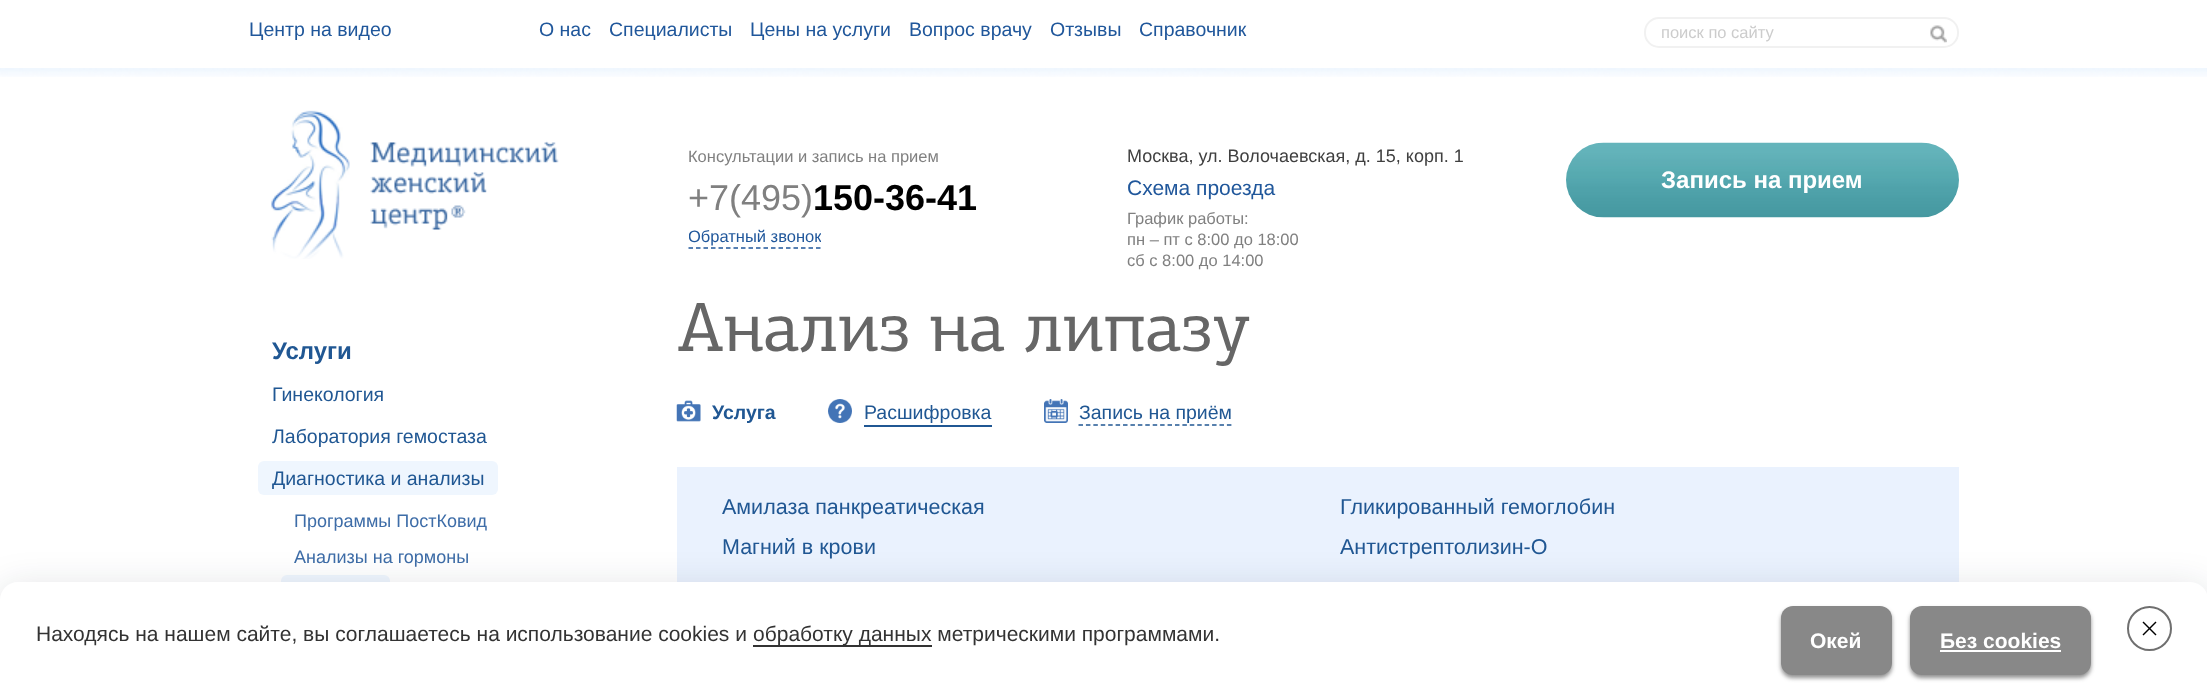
async function draw(canvas) {
  canvas.width = 2207;
  canvas.height = 699;
  const ctx = canvas.getContext('2d');
  ctx.miterLimit = 4;
  ctx.fontKerning = 'normal';
  function label(s, x, y, font, color) {
    ctx.font = font;
    ctx.fillStyle = color;
    ctx.fillText(s, x, y);
  }
  function rect(x, y, w, h, color) {
    ctx.fillStyle = color;
    ctx.fillRect(x, y, w, h);
  }
  function roundedRect(x, y, w, h, r, color) {
    ctx.fillStyle = color;
    ctx.beginPath();
    ctx.roundRect(x, y, w, h, r);
    ctx.fill();
  }
  async function image(src, x, y, w, h) {
    const img = new Image();
    img.src = src;
    await img.decode();
    ctx.drawImage(img, x, y, w, h);
  }
  let path;

  rect(0, 0, 2207, 699, '#fff');
  label('Центр на видео', 249, 36, '19.5px Liberation Sans', '#20579b');
  label('О наc', 539, 36, '19.5px Liberation Sans', '#20579b');
  label('Специалисты', 609, 36, '19.5px Liberation Sans', '#20579b');
  label('Цены на услуги', 750, 36, '19.5px Liberation Sans', '#20579b');
  label('Вопрос врачу', 909, 36, '19.5px Liberation Sans', '#20579b');
  label('Отзывы', 1050, 36, '19.5px Liberation Sans', '#20579b');
  label('Справочник', 1139, 36, '19.5px Liberation Sans', '#20579b');
  ctx.beginPath();
  ctx.roundRect(1645, 18, 313, 29, 14);
  ctx.strokeStyle = '#f1f1f1';
  ctx.lineWidth = 2;
  ctx.stroke();
  label('поиск по сайту', 1661, 38, '16.5px Liberation Sans', '#ccc');
  await image('assets/img1.png', 1930, 25, 17, 18);
  await image('assets/img2.png', 0, 68, 2207, 9);
  await image('assets/img3.png', 271, 110, 288, 149);
  label('Консультации и запись на прием', 688, 162, '16.5px Liberation Sans', '#808080');
  label('+7(495)', 688, 210, '36px Liberation Sans', '#808080');
  label('150-36-41', 813, 210, 'bold 36px Liberation Sans', '#000');
  path = new Path2D('M688.5 248H820.5');
  ctx.strokeStyle = '#20579b';
  ctx.lineWidth = 1.5;
  ctx.setLineDash([4.5, 3]);
  ctx.stroke(path);
  ctx.save();
  ctx.beginPath();
  ctx.rect(689, 224, 132, 24);
  ctx.clip();
  label('Обратный звонок', 688, 242, '16.5px Liberation Sans', '#20579b');
  ctx.restore();
  label('Москва, ул. Волочаевская, д. 15, корп. 1', 1127, 162, '18px Liberation Sans', '#404040');
  label('Схема проезда', 1127, 195, '21px Liberation Sans', '#20579b');
  label('График работы:', 1127, 224, '16.5px Liberation Sans', '#808080');
  label('пн – пт с 8:00 до 18:00', 1127, 245, '16.5px Liberation Sans', '#808080');
  label('сб с 8:00 до 14:00', 1127, 266, '16.5px Liberation Sans', '#808080');
  await image('assets/img4.png', 1566, 142, 393, 76);
  label('Запись на прием', 1661, 188, 'bold 24px Liberation Sans', '#fff');
  label('Услуги', 272, 359, 'bold 24px Liberation Sans', '#205793');
  label('Гинекология', 272, 401, '19.5px Liberation Sans', '#205793');
  label('Лаборатория гемостаза', 272, 443, '19.5px Liberation Sans', '#205793');
  roundedRect(258, 461, 240, 34, 6, '#eff6fe');
  label('Диагностика и анализы', 272, 485, '19.5px Liberation Sans', '#205793');
  label('Программы ПостКовид', 294, 527, '18px Liberation Sans', '#3e6da8');
  label('Анализы на гормоны', 294, 563, '18px Liberation Sans', '#3e6da8');
  roundedRect(281, 575, 109, 36, 6, '#eff6fe');
  label('Анализ на липазу', 677, 351, '70.25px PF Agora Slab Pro', '#666');
  await image('assets/img5.png', 676, 400, 25, 22);
  label('Услуга', 712, 419, 'bold 19.5px Liberation Sans', '#205793');
  await image('assets/img6.png', 828, 399, 24, 24);
  label('Расшифровка', 864, 419, '19.5px Liberation Sans', '#205793');
  rect(864, 425, 128, 2, '#205793');
  await image('assets/img7.png', 1044, 399, 24, 24);
  label('Запись на приём', 1079, 419, '19.5px Liberation Sans', '#205793');
  path = new Path2D('M1078.5 425H1231.5');
  ctx.strokeStyle = '#205793';
  ctx.setLineDash([4.5, 2.92]);
  ctx.stroke(path);
  rect(677, 467, 1282, 115, '#eaf2fe');
  label('Амилаза панкреатическая', 722, 514, '21.5px Liberation Sans', '#205793');
  label('Гликированный гемоглобин', 1340, 514, '21.5px Liberation Sans', '#205793');
  label('Магний в крови', 722, 554, '21.5px Liberation Sans', '#205793');
  label('Антистрептолизин-О', 1340, 554, '21.5px Liberation Sans', '#205793');
  ctx.fillStyle = '#10182824';
  ctx.filter = 'blur(18px)';
  ctx.beginPath();
  ctx.roundRect(0, 588, 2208, 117, 18);
  ctx.fill();
  ctx.filter = 'none';
  ctx.fillStyle = '#fff';
  path = new Path2D('M18 582H2190C2200 582 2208 590 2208 600V699H0V600C0 590 8 582 18 582Z');
  ctx.fill(path);
  label('Находясь на нашем сайте, вы соглашаетесь на использование cookies и', 36, 641, '21px Liberation Sans', '#333');
  rect(753, 645, 179, 2, '#333');
  label('обработку данных метрическими программами.', 753, 641, '21px Liberation Sans', '#333');
  ctx.fillStyle = '#22222280';
  ctx.filter = 'blur(2px)';
  ctx.beginPath();
  ctx.roundRect(1781, 609, 111, 69, 12);
  ctx.fill();
  ctx.filter = 'none';
  roundedRect(1781, 606, 111, 69, 12, '#888');
  label('Окей', 1810, 648, 'bold 21px Liberation Sans', '#fff');
  ctx.fillStyle = '#22222280';
  ctx.filter = 'blur(2px)';
  ctx.beginPath();
  ctx.roundRect(1910, 609, 181, 69, 12);
  ctx.fill();
  ctx.filter = 'none';
  roundedRect(1910, 606, 181, 69, 12, '#888');
  label('Без cookies', 1940, 648, 'bold 21px Liberation Sans', '#fff');
  rect(1940, 650, 121, 2, '#fff');
  ctx.beginPath();
  ctx.arc(2149.5, 628.5, 21.5, 0, 2 * Math.PI);
  ctx.strokeStyle = '#6f6f6f';
  ctx.lineWidth = 2;
  ctx.setLineDash([]);
  ctx.stroke();
  ctx.fillStyle = '#000';
  path = new Path2D('M2155.5 621.5L2156.5 622.5L2143.5 635.5L2142.5 634.5Z');
  ctx.fill(path);
  path = new Path2D('M2142.5 622.5L2143.5 621.5L2156.5 634.5L2155.5 635.5Z');
  ctx.fill(path);
}

draw(document.querySelector('canvas'));
